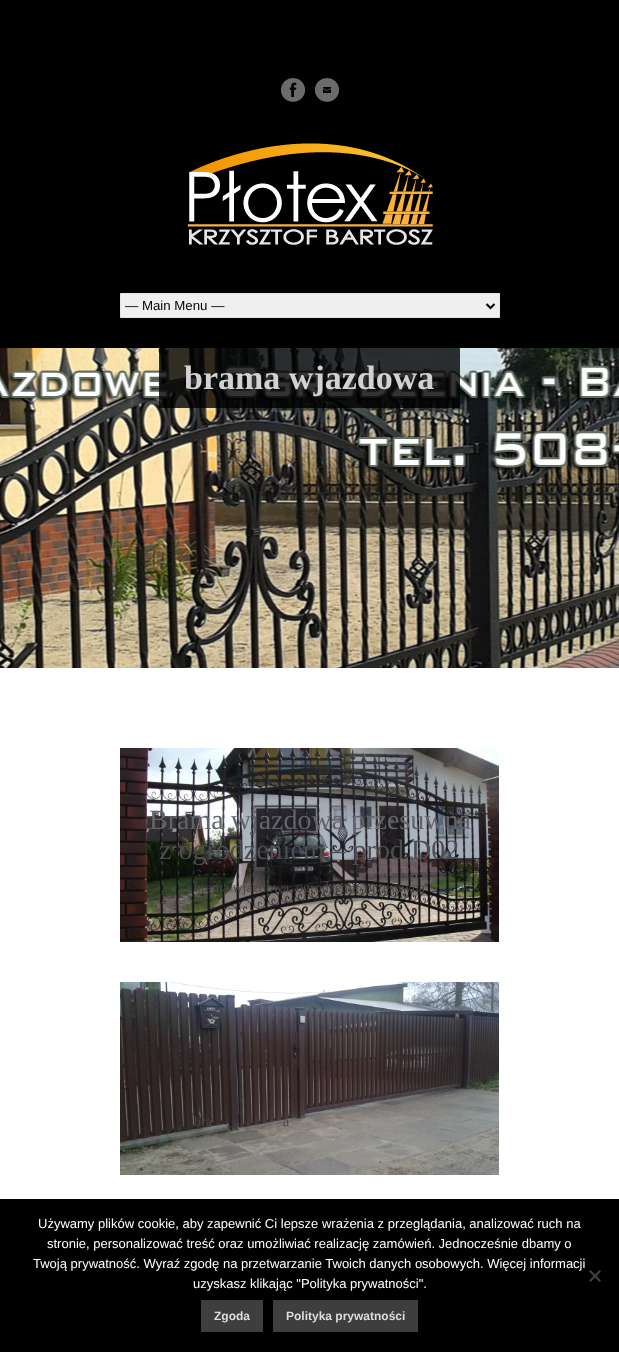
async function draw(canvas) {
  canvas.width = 619;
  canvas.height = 1352;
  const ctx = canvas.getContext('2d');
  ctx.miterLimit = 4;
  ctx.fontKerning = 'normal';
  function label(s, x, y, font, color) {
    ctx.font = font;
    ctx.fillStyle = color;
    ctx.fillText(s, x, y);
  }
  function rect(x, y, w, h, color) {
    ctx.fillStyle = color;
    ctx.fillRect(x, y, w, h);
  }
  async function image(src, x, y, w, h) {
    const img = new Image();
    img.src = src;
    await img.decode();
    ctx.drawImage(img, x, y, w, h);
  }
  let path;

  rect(0, 0, 619, 1352, '#fff');
  rect(0, 0, 619, 348, '#000');
  await image('assets/img1.png', 281, 78, 24, 24);
  await image('assets/img2.png', 315, 78, 24, 24);
  await image('assets/img3.png', 187, 143, 246, 102);
  ctx.fillStyle = '#efefef';
  ctx.beginPath();
  ctx.rect(120.5, 293.5, 379, 24);
  ctx.fill();
  ctx.strokeStyle = '#e6e6e6';
  ctx.stroke();
  path = new Path2D('M486.5 304L490.5 308L494.5 304');
  ctx.strokeStyle = '#000';
  ctx.lineWidth = 2;
  ctx.stroke(path);
  label('— Main Menu —', 125, 310, '13.25px Liberation Sans', '#000');
  await image('assets/img4.png', 0, 348, 619, 320);
  rect(159, 348, 301, 60, '#000000cc');
  label('brama wjazdowa', 184, 389, 'bold 34px Liberation Serif', '#d1d2d1');
  await image('assets/img5.png', 120, 748, 379, 194);
  label('Brama wjazdowa przesuwna', 149, 829, '28px Liberation Serif', '#63646b');
  label('z ogrodzeniem – prod D02', 159, 859, '28px Liberation Serif', '#4c4d4e');
  label('brama wjazdowa', 194, 892, '14px Liberation Serif', '#484742');
  label('ogrodzenia', 296, 892, '14px Liberation Serif', '#484742');
  label('przesuwna', 365, 892, '14px Liberation Serif', '#484742');
  await image('assets/img6.png', 120, 982, 379, 193);
  label('bra', 194, 1126, '14px Liberation Serif', '#484742');
  label('a', 283, 1126, '14px Liberation Serif', '#484742');
  rect(0, 1199, 619, 153, '#000');
  label('Używamy plików cookie, aby zapewnić Ci lepsze wrażenia z przeglądania, analizować ruch na', 38, 1228, '13px Liberation Sans', '#fff');
  label('stronie, personalizować treść oraz umożliwiać realizację zamówień. Jednocześnie dbamy o', 47, 1248, '13px Liberation Sans', '#fff');
  label('Twoją prywatność. Wyraź zgodę na przetwarzanie Twoich danych osobowych. Więcej informacji', 33, 1268, '13px Liberation Sans', '#fff');
  label('uzyskasz klikając "Polityka prywatności".', 193, 1288, '13px Liberation Sans', '#fff');
  ctx.fillStyle = '#404040';
  path = new Path2D('M599.5 1270L601 1271.5L590.5 1282L589 1280.5Z');
  ctx.fill(path);
  path = new Path2D('M589 1271.5L590.5 1270L601 1280.5L599.5 1282Z');
  ctx.fill(path);
  rect(201, 1300, 62, 32, '#3e3e3e');
  label('Zgoda', 214, 1320, 'bold 12px Liberation Sans', '#ddd');
  rect(273, 1300, 145, 32, '#3e3e3e');
  label('Polityka prywatności', 286, 1320, 'bold 12px Liberation Sans', '#ddd');
}

draw(document.querySelector('canvas'));
